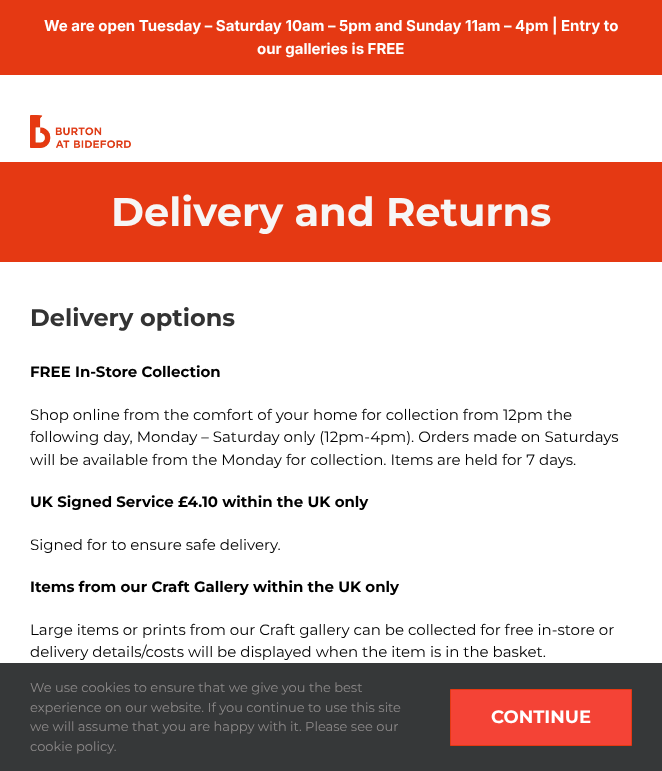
async function draw(canvas) {
  canvas.width = 662;
  canvas.height = 771;
  const ctx = canvas.getContext('2d');
  ctx.miterLimit = 4;
  ctx.fontKerning = 'normal';
  function label(s, x, y, font, color) {
    ctx.font = font;
    ctx.fillStyle = color;
    ctx.fillText(s, x, y);
  }
  function rect(x, y, w, h, color) {
    ctx.fillStyle = color;
    ctx.fillRect(x, y, w, h);
  }
  async function image(src, x, y, w, h) {
    const img = new Image();
    img.src = src;
    await img.decode();
    ctx.drawImage(img, x, y, w, h);
  }

  rect(0, 0, 662, 771, '#fff');
  rect(0, 0, 662, 75, '#e53913');
  label('We are open Tuesday – Saturday 10am – 5pm and Sunday 11am – 4pm | Entry to', 44, 31, 'bold 15px Inter', '#fff');
  label('our galleries is FREE', 257, 54, 'bold 15px Inter', '#fff');
  await image('assets/img1.png', 30, 115, 101, 33);
  rect(0, 162, 662, 100, '#e53913');
  label('Delivery and Returns', 111, 226, 'bold 40px Montserrat', '#f6f6f6');
  label('Delivery options', 30, 326, 'bold 24px Montserrat', '#333');
  label('FREE In-Store Collection', 30, 377, 'bold 15px Montserrat', '#000');
  label('Shop online from the comfort of your home for collection from 12pm the', 30, 420, '15px Montserrat', '#000');
  label('following day, Monday – Saturday only (12pm-4pm). Orders made on Saturdays', 30, 442, '15px Montserrat', '#000');
  label('will be available from the Monday for collection. Items are held for 7 days.', 30, 465, '15px Montserrat', '#000');
  label('UK Signed Service £4.10 within the UK only', 30, 507, 'bold 15px Montserrat', '#000');
  label('Signed for to ensure safe delivery.', 30, 550, '15px Montserrat', '#000');
  label('Items from our Craft Gallery within the UK only', 30, 592, 'bold 15px Montserrat', '#000');
  label('Large items or prints from our Craft gallery can be collected for free in-store or', 30, 635, '15px Montserrat', '#000');
  label('delivery details/costs will be displayed when the item is in the basket.', 30, 657, '15px Montserrat', '#000');
  rect(0, 663, 662, 108, '#363839');
  label('We use cookies to ensure that we give you the best', 30, 692, '13px Montserrat', '#8c8989');
  label('experience on our website. If you continue to use this site', 30, 712, '13px Montserrat', '#8c8989');
  label('we will assume that you are happy with it. Please see our', 30, 731, '13px Montserrat', '#8c8989');
  label('cookie policy.', 30, 751, '13px Montserrat', '#8c8989');
  ctx.fillStyle = '#f44336';
  ctx.beginPath();
  ctx.rect(450.5, 689.5, 181, 56);
  ctx.fill();
  ctx.strokeStyle = '#e53913';
  ctx.stroke();
  label('CONTINUE', 491, 723, 'bold 18px Montserrat', '#fff');
}

draw(document.querySelector('canvas'));
